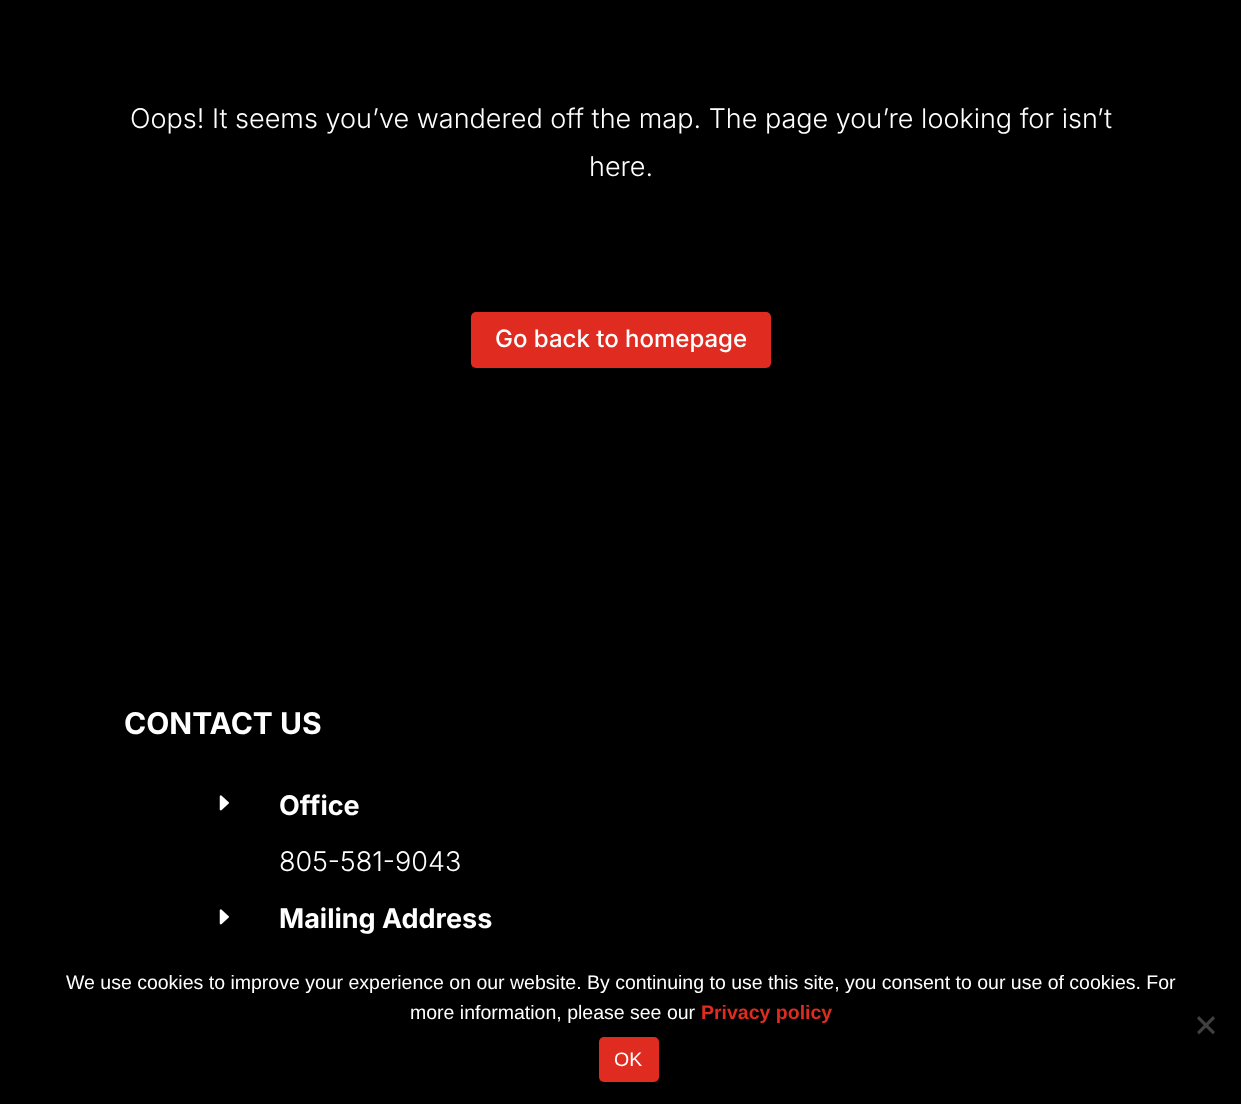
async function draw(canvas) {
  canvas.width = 1241;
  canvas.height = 1104;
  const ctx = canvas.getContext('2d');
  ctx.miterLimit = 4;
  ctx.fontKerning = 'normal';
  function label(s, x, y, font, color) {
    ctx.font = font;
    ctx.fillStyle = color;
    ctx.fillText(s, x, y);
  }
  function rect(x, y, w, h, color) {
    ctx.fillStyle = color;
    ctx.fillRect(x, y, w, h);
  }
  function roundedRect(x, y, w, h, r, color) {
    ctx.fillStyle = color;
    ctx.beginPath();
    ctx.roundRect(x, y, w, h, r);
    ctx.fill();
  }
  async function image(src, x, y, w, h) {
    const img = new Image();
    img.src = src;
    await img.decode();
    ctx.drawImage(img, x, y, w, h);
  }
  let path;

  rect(0, 0, 1241, 1104, '#000');
  label('Oops! It seems you’ve wandered off the map. The page you’re looking for isn’t', 130, 128, '300 27px Inter', '#fff');
  label('here.', 589, 176, '300 27px Inter', '#fff');
  roundedRect(471, 312, 300, 56, 5, '#e02b20');
  label('Go back to homepage', 495, 347, '500 24px Inter', '#fff');
  label('CONTACT US', 124, 734, 'bold 30px Inter', '#fff');
  await image('assets/img1.png', 219, 795, 10, 16);
  label('Office', 279, 815, 'bold 27px Inter', '#fff');
  label('805-581-9043', 279, 871, '300 27px Inter', '#fff');
  await image('assets/img1.png', 219, 909, 10, 16);
  label('Mailing Address', 279, 928, 'bold 27px Inter', '#fff');
  label('We use cookies to improve your experience on our website. By continuing to use this site, you consent to our use of cookies. For', 66, 989, '19.5px Liberation Sans', '#fff');
  label('more information, please see our', 410, 1019, '19.5px Liberation Sans', '#fff');
  label('Privacy policy', 701, 1019, 'bold 19.5px Liberation Sans', '#e02b20');
  ctx.fillStyle = '#404040';
  path = new Path2D('M1213 1016L1215 1018.5L1199 1034.5L1197 1032Z');
  ctx.fill(path);
  path = new Path2D('M1197 1018.5L1199 1016L1215 1032L1213 1034.5Z');
  ctx.fill(path);
  roundedRect(599, 1037, 60, 45, 5, '#e02b20');
  label('OK', 614, 1066, '19.5px Liberation Sans', '#fff');
}

draw(document.querySelector('canvas'));
